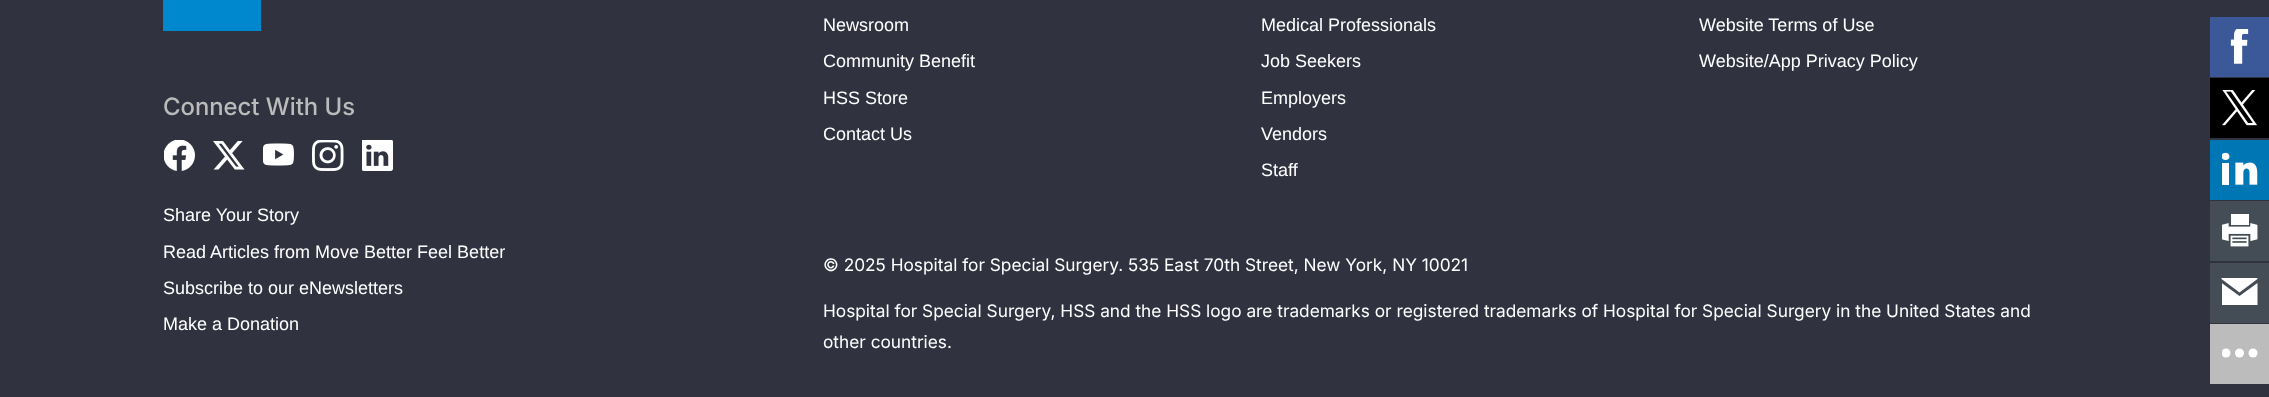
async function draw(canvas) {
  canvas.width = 2269;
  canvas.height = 397;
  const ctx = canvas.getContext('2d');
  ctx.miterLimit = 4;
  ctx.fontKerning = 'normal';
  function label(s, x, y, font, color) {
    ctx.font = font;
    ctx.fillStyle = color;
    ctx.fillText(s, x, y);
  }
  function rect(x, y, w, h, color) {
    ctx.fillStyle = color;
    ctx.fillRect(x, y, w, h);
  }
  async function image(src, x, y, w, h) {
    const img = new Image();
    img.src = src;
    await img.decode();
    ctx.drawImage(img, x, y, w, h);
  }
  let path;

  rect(0, 0, 2269, 397, '#30333f');
  rect(163, 0, 98, 31, '#0088ce');
  label('Connect With Us', 163, 115, '500 24px Inter', '#bbb');
  await image('assets/img1.png', 164, 140, 31, 31);
  await image('assets/img2.png', 213, 141, 32, 29);
  await image('assets/img3.png', 263, 143, 31, 23);
  await image('assets/img4.png', 312, 140, 32, 31);
  await image('assets/img5.png', 362, 140, 31, 31);
  label('Share Your Story', 163, 221, '18px Liberation Sans', '#fff');
  label('Read Articles from Move Better Feel Better', 163, 258, '18px Liberation Sans', '#fff');
  label('Subscribe to our eNewsletters', 163, 294, '18px Liberation Sans', '#fff');
  label('Make a Donation', 163, 330, '18px Liberation Sans', '#fff');
  label('Newsroom', 823, 31, '18px Liberation Sans', '#fff');
  label('Community Benefit', 823, 67, '18px Liberation Sans', '#fff');
  label('HSS Store', 823, 104, '18px Liberation Sans', '#fff');
  label('Contact Us', 823, 140, '18px Liberation Sans', '#fff');
  label('Medical Professionals', 1261, 31, '18px Liberation Sans', '#fff');
  label('Job Seekers', 1261, 67, '18px Liberation Sans', '#fff');
  label('Employers', 1261, 104, '18px Liberation Sans', '#fff');
  label('Vendors', 1261, 140, '18px Liberation Sans', '#fff');
  label('Staff', 1261, 176, '18px Liberation Sans', '#fff');
  label('Website Terms of Use', 1699, 31, '18px Liberation Sans', '#fff');
  label('Website/App Privacy Policy', 1699, 67, '18px Liberation Sans', '#fff');
  label('© 2025 Hospital for Special Surgery. 535 East 70th Street, New York, NY 10021', 823, 271, '17.28px Inter', '#fff');
  label('Hospital for Special Surgery, HSS and the HSS logo are trademarks or registered trademarks of Hospital for Special Surgery in the United States and', 823, 317, '17.28px Inter', '#fff');
  label('other countries.', 823, 348, '17.28px Inter', '#fff');
  rect(2210, 17, 59, 60, '#3b5998');
  await image('assets/img6.png', 2230, 29, 19, 35);
  rect(2210, 78, 59, 60, '#000');
  await image('assets/img7.png', 2222, 90, 35, 36);
  rect(2210, 140, 59, 60, '#0077b5');
  await image('assets/img8.png', 2222, 152, 36, 33);
  rect(2210, 201, 59, 60, '#444d55');
  await image('assets/img9.png', 2222, 214, 36, 33);
  rect(2210, 263, 59, 60, '#444d55');
  ctx.save();
  ctx.beginPath();
  ctx.rect(2222, 275, 36, 36);
  ctx.clip();
  ctx.fillStyle = '#fff';
  path = new Path2D('M2239.5 296L2221.5 283V305H2257.5V283Z');
  ctx.fill(path);
  ctx.restore();
  ctx.fillStyle = '#fff';
  path = new Path2D('M2239.5 292.5L2257.5 279V278H2221.5V279Z');
  ctx.fill(path);
  rect(2210, 324, 59, 60, '#bcbcbc');
  ctx.save();
  ctx.beginPath();
  ctx.rect(2222, 336, 36, 36);
  ctx.clip();
  ctx.fillStyle = '#fff';
  ctx.beginPath();
  ctx.arc(2226, 353, 4.5, 0, 2 * Math.PI);
  ctx.fill();
  ctx.restore();
  ctx.fillStyle = '#fff';
  ctx.beginPath();
  ctx.arc(2239.5, 353, 4.5, 0, 2 * Math.PI);
  ctx.fill();
  ctx.beginPath();
  ctx.arc(2253, 353, 4.5, 0, 2 * Math.PI);
  ctx.fill();
}

draw(document.querySelector('canvas'));
